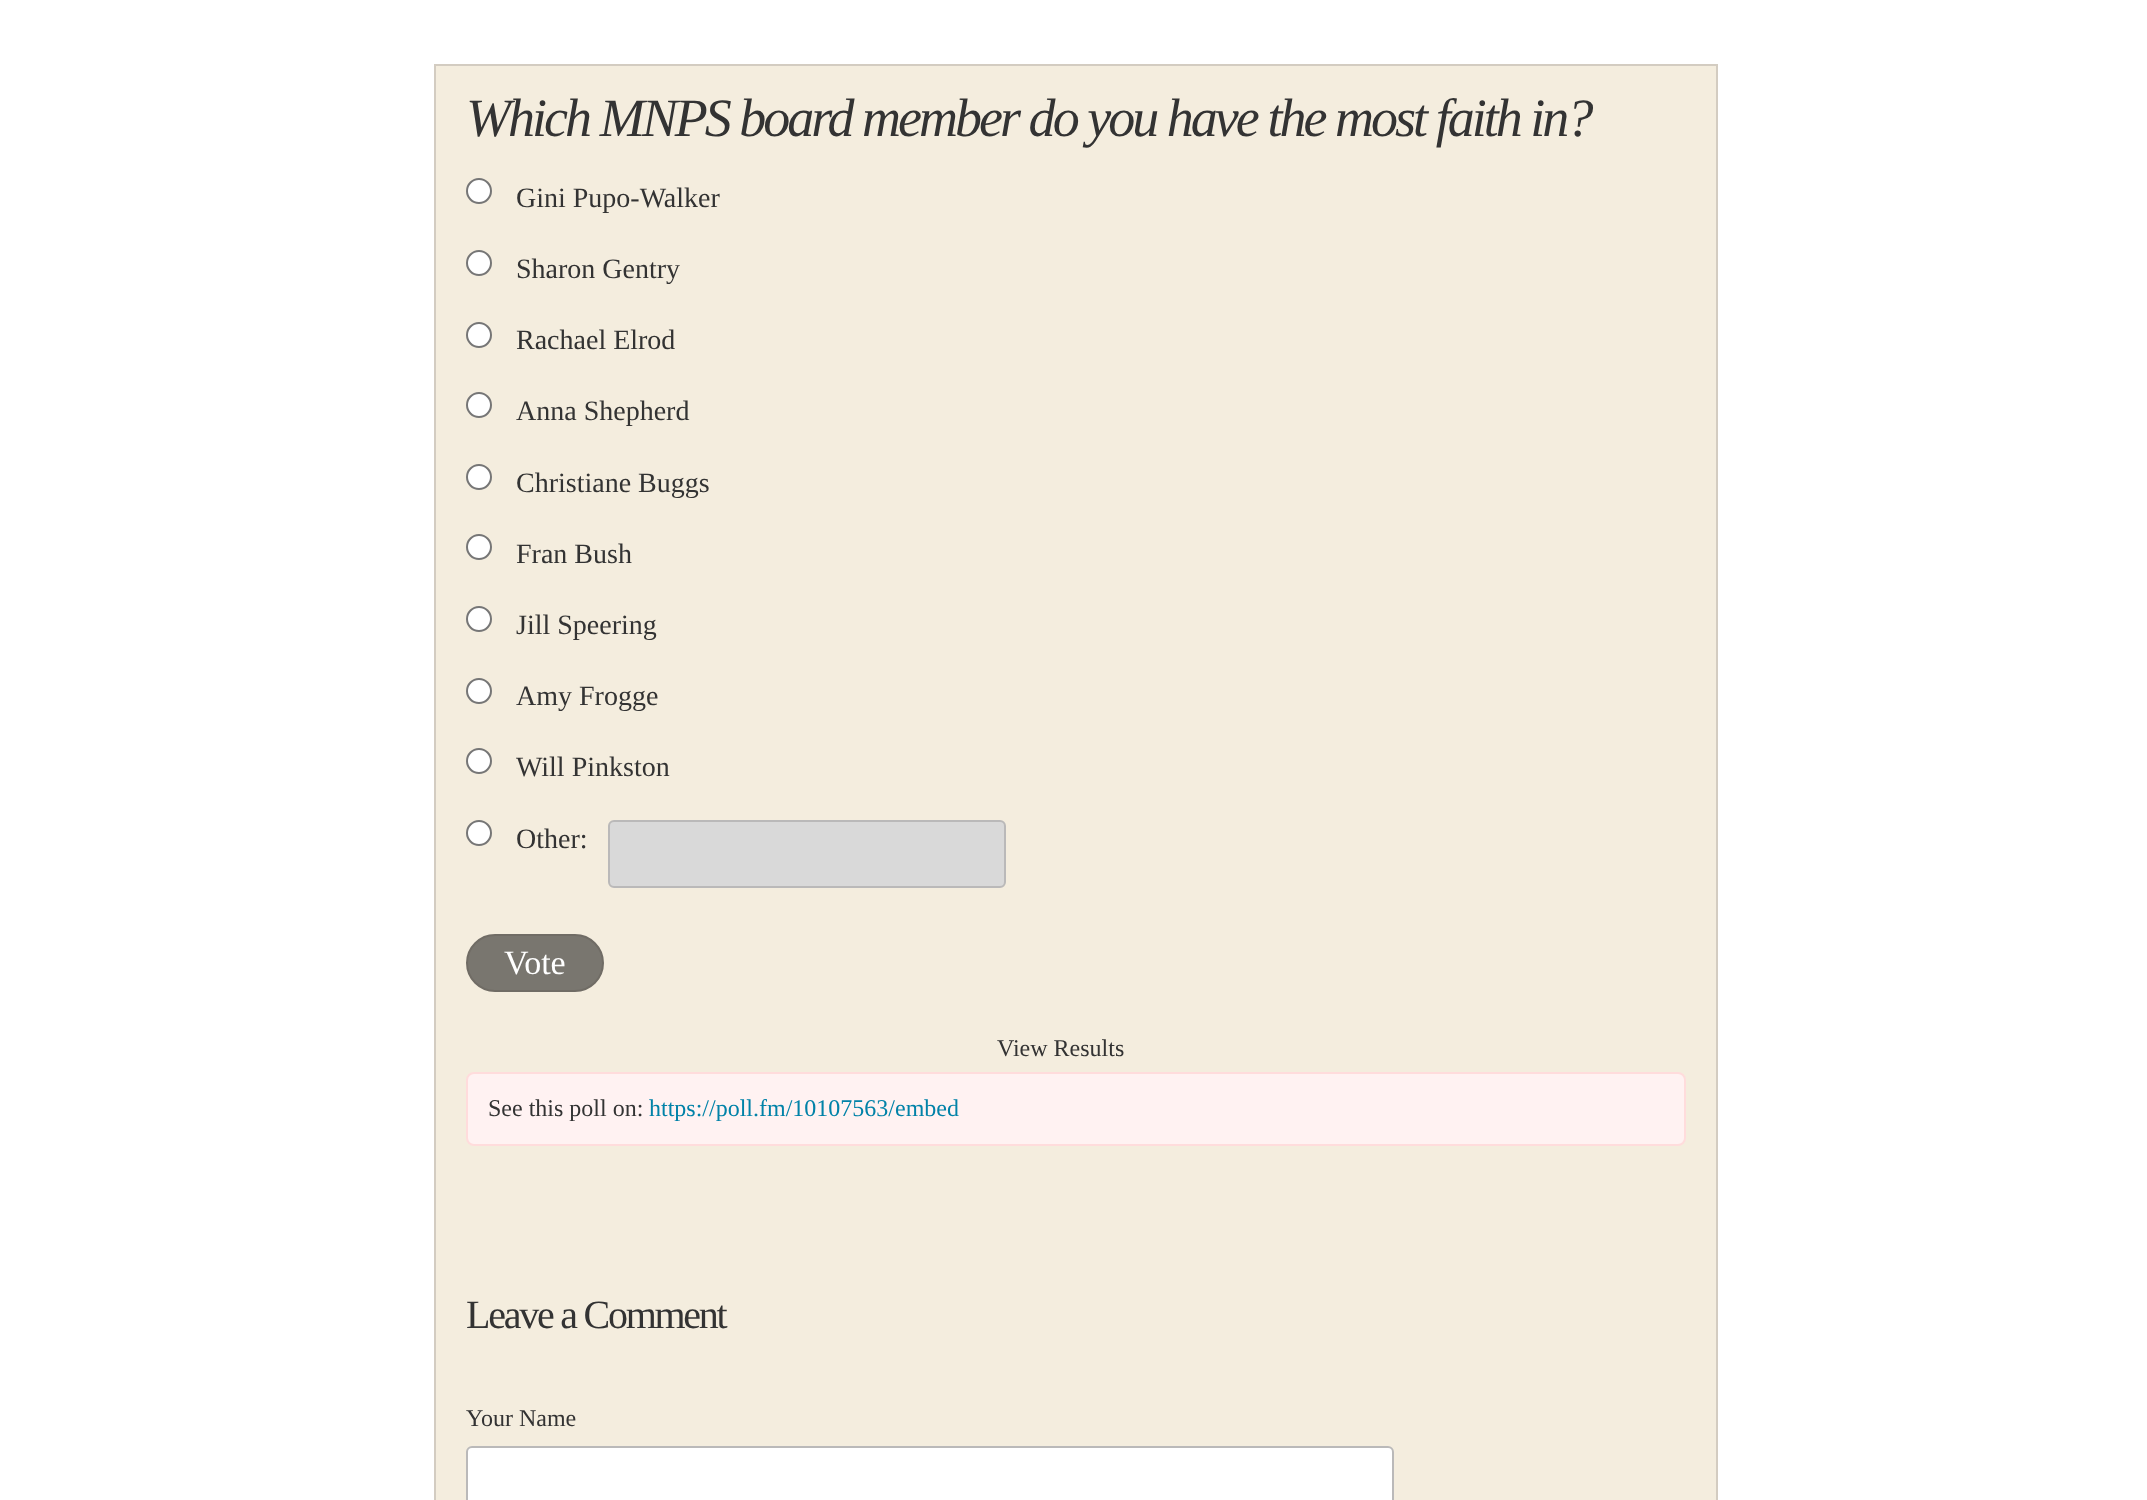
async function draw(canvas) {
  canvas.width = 2147;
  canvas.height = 1500;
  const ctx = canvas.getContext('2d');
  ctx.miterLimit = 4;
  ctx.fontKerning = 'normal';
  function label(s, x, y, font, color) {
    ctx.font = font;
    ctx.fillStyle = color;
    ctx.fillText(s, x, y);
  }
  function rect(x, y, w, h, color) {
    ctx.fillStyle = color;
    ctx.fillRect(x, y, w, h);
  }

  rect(0, 0, 2147, 1500, '#fff');
  ctx.fillStyle = '#f4edde';
  ctx.beginPath();
  ctx.rect(435, 65, 1282, 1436);
  ctx.fill();
  ctx.strokeStyle = '#d3ccc1';
  ctx.lineWidth = 2;
  ctx.stroke();
  ctx.letterSpacing = '-2.97px';
  label('Which MNPS board member do you have the most faith in?', 466, 136, 'italic 54px Liberation Serif', '#333');
  ctx.fillStyle = '#fff';
  ctx.beginPath();
  ctx.arc(479, 191, 12, 0, 2 * Math.PI);
  ctx.fill();
  ctx.strokeStyle = '#767676';
  ctx.stroke();
  ctx.letterSpacing = '0px';
  label('Gini Pupo-Walker', 516, 207, '28px Liberation Serif', '#333');
  ctx.fillStyle = '#fff';
  ctx.beginPath();
  ctx.arc(479, 263, 12, 0, 2 * Math.PI);
  ctx.fill();
  ctx.stroke();
  label('Sharon Gentry', 516, 278, '28px Liberation Serif', '#333');
  ctx.fillStyle = '#fff';
  ctx.beginPath();
  ctx.arc(479, 335, 12, 0, 2 * Math.PI);
  ctx.fill();
  ctx.stroke();
  label('Rachael Elrod', 516, 349, '28px Liberation Serif', '#333');
  ctx.fillStyle = '#fff';
  ctx.beginPath();
  ctx.arc(479, 405, 12, 0, 2 * Math.PI);
  ctx.fill();
  ctx.stroke();
  label('Anna Shepherd', 516, 420, '28px Liberation Serif', '#333');
  ctx.fillStyle = '#fff';
  ctx.beginPath();
  ctx.arc(479, 477, 12, 0, 2 * Math.PI);
  ctx.fill();
  ctx.stroke();
  label('Christiane Buggs', 516, 492, '28px Liberation Serif', '#333');
  ctx.fillStyle = '#fff';
  ctx.beginPath();
  ctx.arc(479, 547, 12, 0, 2 * Math.PI);
  ctx.fill();
  ctx.stroke();
  label('Fran Bush', 516, 563, '28px Liberation Serif', '#333');
  ctx.fillStyle = '#fff';
  ctx.beginPath();
  ctx.arc(479, 619, 12, 0, 2 * Math.PI);
  ctx.fill();
  ctx.stroke();
  label('Jill Speering', 516, 634, '28px Liberation Serif', '#333');
  ctx.fillStyle = '#fff';
  ctx.beginPath();
  ctx.arc(479, 691, 12, 0, 2 * Math.PI);
  ctx.fill();
  ctx.stroke();
  label('Amy Frogge', 516, 705, '28px Liberation Serif', '#333');
  ctx.fillStyle = '#fff';
  ctx.beginPath();
  ctx.arc(479, 761, 12, 0, 2 * Math.PI);
  ctx.fill();
  ctx.stroke();
  label('Will Pinkston', 516, 776, '28px Liberation Serif', '#333');
  ctx.fillStyle = '#fff';
  ctx.beginPath();
  ctx.arc(479, 833, 12, 0, 2 * Math.PI);
  ctx.fill();
  ctx.stroke();
  label('Other:', 516, 848, '28px Liberation Serif', '#333');
  ctx.fillStyle = '#d9d9d9';
  ctx.beginPath();
  ctx.roundRect(609, 821, 396, 66, 5);
  ctx.fill();
  ctx.strokeStyle = '#bab9b9';
  ctx.stroke();
  ctx.fillStyle = '#79766f';
  ctx.beginPath();
  ctx.roundRect(467, 935, 136, 56, 28);
  ctx.fill();
  ctx.strokeStyle = '#706c65';
  ctx.stroke();
  label('Vote', 504, 974, '34px Liberation Serif', '#fff');
  label('View Results', 997, 1056, '24px Liberation Serif', '#333');
  ctx.fillStyle = '#fff2f2';
  ctx.beginPath();
  ctx.roundRect(467, 1073, 1218, 72, 7);
  ctx.fill();
  ctx.strokeStyle = '#ffdcdc';
  ctx.stroke();
  label('See this poll on:', 488, 1116, '24px Liberation Serif', '#333');
  label('https://poll.fm/10107563/embed', 649, 1116, '24px Liberation Serif', '#0182a8');
  ctx.letterSpacing = '-2.25px';
  label('Leave a Comment', 466, 1328, '40px Liberation Serif', '#333');
  ctx.letterSpacing = '0px';
  label('Your Name', 466, 1426, '24px Liberation Serif', '#333');
  ctx.fillStyle = '#fff';
  ctx.beginPath();
  ctx.roundRect(467, 1447, 926, 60, 5);
  ctx.fill();
  ctx.strokeStyle = '#bab9b9';
  ctx.stroke();
}

draw(document.querySelector('canvas'));
